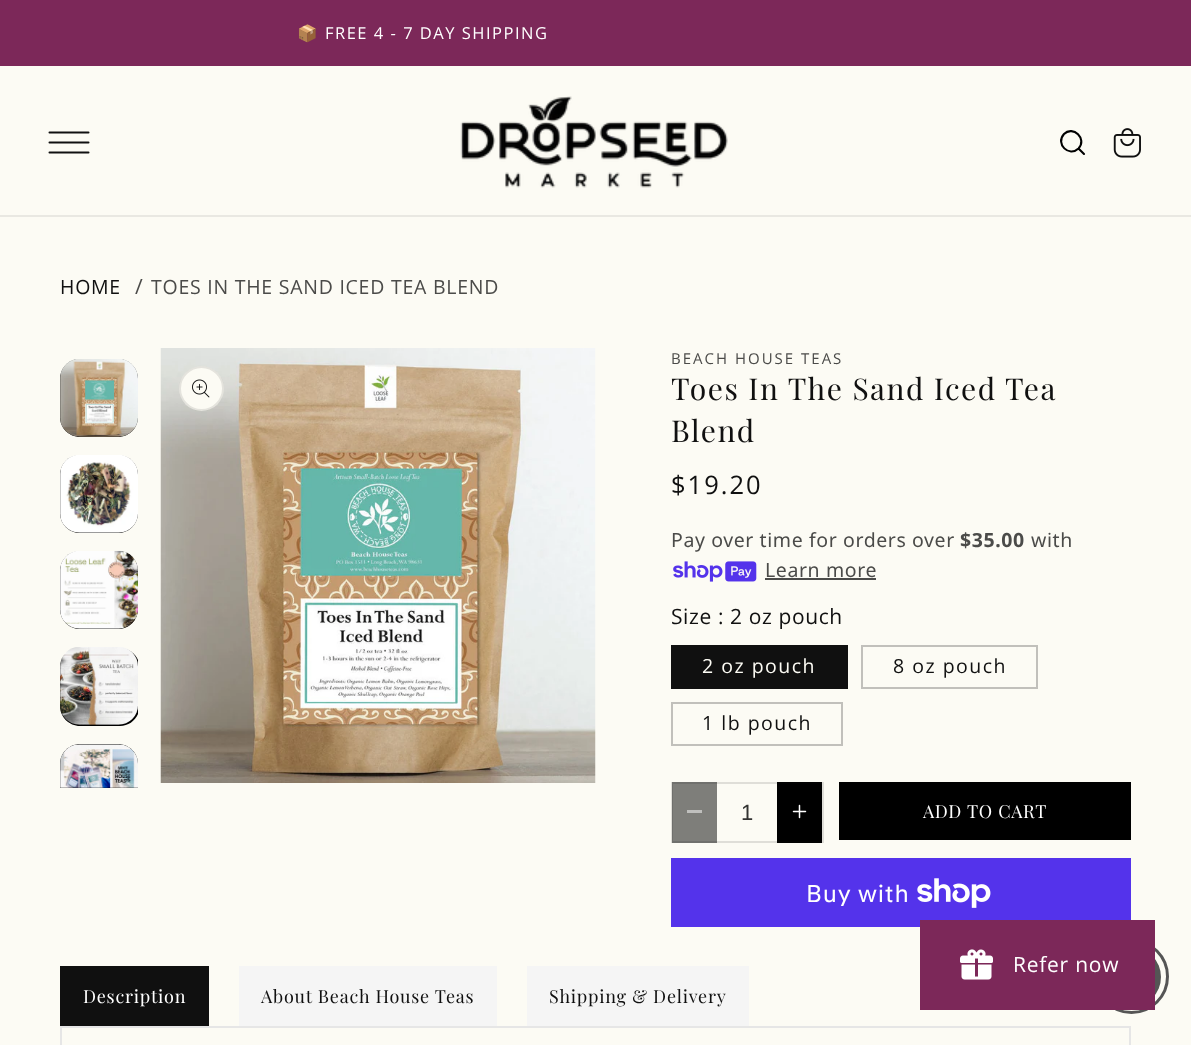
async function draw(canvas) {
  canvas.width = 1191;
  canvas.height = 1045;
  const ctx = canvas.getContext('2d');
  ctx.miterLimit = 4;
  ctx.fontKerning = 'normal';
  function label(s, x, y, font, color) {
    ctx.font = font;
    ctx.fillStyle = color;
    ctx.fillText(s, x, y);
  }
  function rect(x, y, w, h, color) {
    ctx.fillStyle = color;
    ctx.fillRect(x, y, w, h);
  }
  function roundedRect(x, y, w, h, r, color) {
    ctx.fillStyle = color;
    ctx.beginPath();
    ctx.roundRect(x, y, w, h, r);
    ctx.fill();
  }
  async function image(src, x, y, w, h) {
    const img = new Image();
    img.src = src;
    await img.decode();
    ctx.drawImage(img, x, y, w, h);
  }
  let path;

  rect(0, 0, 1191, 1045, '#fcfbf4');
  rect(0, 0, 1191, 66, '#7c2859');
  ctx.letterSpacing = '1.5px';
  label('📦', 297, 39, '16.5px Noto Color Emoji', '#fff');
  label('FREE 4 - 7 DAY SHIPPING', 325, 39, '16.5px Open Sans', '#fff');
  rect(0, 215, 1191, 2, '#e9e8e2');
  path = new Path2D('M49.5 132.5H88.5M49.5 142.5H88.5M49.5 152.5H88.5');
  ctx.strokeStyle = '#101010';
  ctx.lineWidth = 2;
  ctx.lineCap = 'round';
  ctx.lineJoin = 'round';
  ctx.stroke(path);
  await image('assets/img1.png', 460, 96, 268, 92);
  path = new Path2D('M1084 154L1078.5 148.5M1078.5 148.5C1087.5 139 1073 125 1064 134C1055 144 1069 157.5 1078.5 148.5Z');
  ctx.strokeStyle = '#000';
  ctx.lineWidth = 2.1;
  ctx.stroke(path);
  await image('assets/img2.png', 1113, 128, 28, 30);
  ctx.letterSpacing = '0.75px';
  label('HOME', 60, 294, '19.5px Open Sans', '#101010');
  label('/', 135, 294, '21px Open Sans', '#4b4b49');
  label('TOES IN THE SAND ICED TEA BLEND', 151, 294, '19.5px Open Sans', '#4b4b49');
  ctx.fillStyle = '#000';
  path = new Path2D('M121 359C131 361 138 369 138 379V417C138 428 129 437 118 437H80C69 437 60 428 60 417V379C60 369 67 361 77 359Z');
  ctx.fill(path);
  await image('assets/img3.png', 60, 359, 78, 78);
  roundedRect(60, 455, 78, 78, 20, '#000');
  await image('assets/img4.png', 60, 455, 78, 78);
  roundedRect(60, 551, 78, 78, 20, '#000');
  await image('assets/img5.png', 60, 550, 78, 79);
  path = new Path2D('M80 648H120C128 648 135 653 138 660V714C135 721 128 726 120 726H80C69 726 60 717 60 706V668C60 657 69 648 80 648Z');
  ctx.fill(path);
  await image('assets/img6.png', 60, 647, 78, 78);
  path = new Path2D('M80 744H118C129 744 138 753 138 764V788H60V764C60 753 69 744 80 744Z');
  ctx.fill(path);
  await image('assets/img7.png', 60, 744, 78, 44);
  await image('assets/img8.png', 160, 348, 436, 435);
  ctx.fillStyle = '#fcfbf4';
  ctx.beginPath();
  ctx.arc(201.5, 388.5, 22.5, 0, 2 * Math.PI);
  ctx.fill();
  ctx.beginPath();
  ctx.arc(201.5, 388.5, 21.5, 0, 2 * Math.PI);
  ctx.strokeStyle = '#1010101a';
  ctx.lineWidth = 2;
  ctx.stroke();
  await image('assets/img9.png', 192, 379, 18, 19);
  ctx.letterSpacing = '2px';
  label('BEACH HOUSE TEAS', 671, 364, '15px Open Sans', '#4b4b49');
  ctx.letterSpacing = '1.5px';
  label('Toes In The Sand Iced Tea', 671, 400, '30px Playfair Display', '#101010');
  label('Blend', 671, 442, '30px Playfair Display', '#101010');
  ctx.letterSpacing = '2px';
  label('$19.20', 671, 494, '25.5px Open Sans', '#101010');
  ctx.letterSpacing = '0.6px';
  label('Pay over time for orders over', 671, 547, '19.5px Noto Sans', '#4b4b49');
  label('$35.00', 960, 547, 'bold 19.5px Noto Sans', '#4b4b49');
  label('with', 1031, 547, '19.5px Noto Sans', '#4b4b49');
  await image('assets/img10.png', 673, 561, 84, 21);
  label('Learn more', 765, 577, '19.5px Noto Sans', '#4b4b49');
  rect(765, 578, 111, 2, '#4b4b49');
  label('Size : 2 oz pouch', 671, 624, '21px Open Sans', '#101010');
  rect(671, 645, 177, 44, '#101010');
  ctx.letterSpacing = '1.5px';
  label('2 oz pouch', 702, 673, '19.5px Open Sans', '#fcfbf4');
  ctx.strokeStyle = '#c1c0bb';
  ctx.lineJoin = 'miter';
  ctx.strokeRect(862, 646, 175, 42);
  label('8 oz pouch', 893, 673, '19.5px Open Sans', '#101010');
  ctx.strokeRect(672, 703, 170, 42);
  label('1 lb pouch', 702, 730, '19.5px Open Sans', '#101010');
  rect(672, 782, 45, 61, '#7e7e7a');
  rect(687, 810, 15, 3, '#bfbfbd');
  rect(777, 782, 45, 61, '#000');
  await image('assets/img11.png', 792, 804, 15, 15);
  ctx.strokeStyle = '#1010101f';
  ctx.strokeRect(672, 783, 151, 59);
  ctx.letterSpacing = '0px';
  label('1', 741, 820, '22px Liberation Sans', '#333332');
  rect(839, 782, 292, 58, '#000');
  ctx.letterSpacing = '0.75px';
  label('ADD TO CART', 923, 818, '18px Playfair Display', '#fff');
  rect(671, 858, 460, 69, '#5433eb');
  label('Buy with', 806, 902, '24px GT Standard', '#fff');
  await image('assets/img12.png', 917, 878, 74, 30);
  rect(60, 966, 149, 60, '#101010');
  label('Description', 83, 1003, '18px Playfair Display', '#fff');
  rect(239, 966, 258, 60, '#f5f5f5');
  label('About Beach House Teas', 261, 1003, '18px Playfair Display', '#101010');
  rect(527, 966, 222, 60, '#f5f5f5');
  label('Shipping & Delivery', 549, 1003, '18px Playfair Display', '#101010');
  ctx.strokeStyle = '#e6e6e6';
  ctx.strokeRect(61, 1027, 1069, 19);
  ctx.fillStyle = '#555';
  ctx.beginPath();
  ctx.arc(1131, 977, 30, 0, 2 * Math.PI);
  ctx.fill();
  ctx.beginPath();
  ctx.arc(1131.5, 976.5, 36, 0, 2 * Math.PI);
  ctx.strokeStyle = '#555';
  ctx.lineWidth = 3;
  ctx.stroke();
  rect(920, 920, 235, 90, '#7c2859');
  await image('assets/img13.png', 960, 949, 33, 31);
  label('Refer now', 1013, 972, '21px Open Sans', '#fff');
}

draw(document.querySelector('canvas'));
